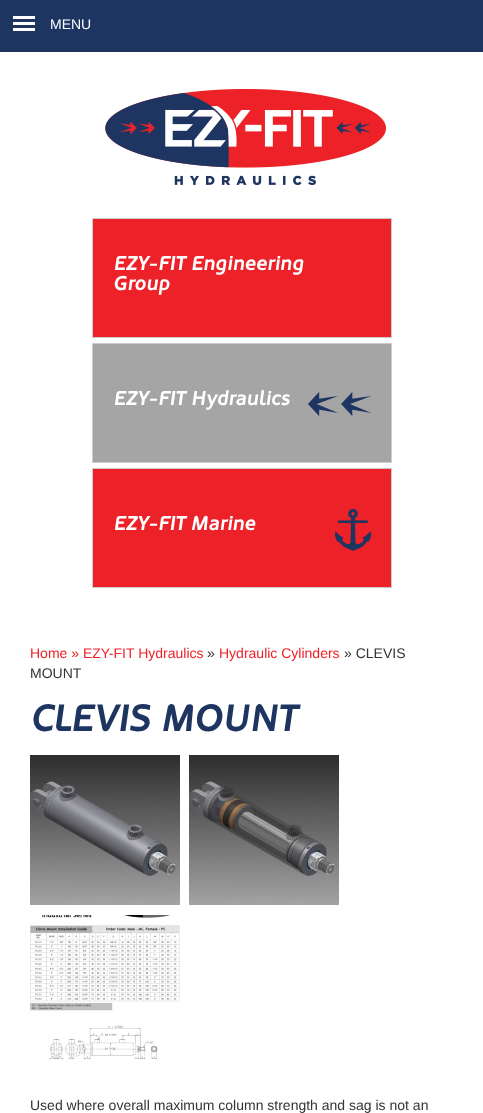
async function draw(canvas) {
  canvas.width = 483;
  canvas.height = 1113;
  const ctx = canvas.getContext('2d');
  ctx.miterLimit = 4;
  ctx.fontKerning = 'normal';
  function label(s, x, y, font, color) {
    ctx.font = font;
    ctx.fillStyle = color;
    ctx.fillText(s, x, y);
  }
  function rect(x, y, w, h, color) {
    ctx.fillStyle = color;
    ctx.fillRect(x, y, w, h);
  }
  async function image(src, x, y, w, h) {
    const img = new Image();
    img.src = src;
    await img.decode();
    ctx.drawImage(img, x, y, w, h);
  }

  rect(0, 0, 483, 1113, '#fff');
  rect(0, 0, 483, 52, '#1e3461');
  rect(13, 16, 22, 3, '#fff');
  rect(13, 22, 22, 3, '#fff');
  rect(13, 28, 22, 3, '#fff');
  label('MENU', 50, 29, '14px Liberation Sans', '#fff');
  await image('assets/img1.png', 105, 89, 281, 96);
  ctx.fillStyle = '#ed2228';
  ctx.beginPath();
  ctx.rect(92.5, 218.5, 299, 119);
  ctx.fill();
  ctx.strokeStyle = '#ccc';
  ctx.stroke();
  label('EZY-FIT Engineering', 113, 270, 'bold 20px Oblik', '#fff');
  label('Group', 113, 290, 'bold 20px Oblik', '#fff');
  ctx.fillStyle = '#a5a5a5';
  ctx.beginPath();
  ctx.rect(92.5, 343.5, 299, 119);
  ctx.fill();
  ctx.stroke();
  await image('assets/img2.png', 308, 392, 63, 24);
  label('EZY-FIT Hydraulics', 113, 405, 'bold 20px Oblik', '#fff');
  ctx.fillStyle = '#ed2228';
  ctx.beginPath();
  ctx.rect(92.5, 468.5, 299, 119);
  ctx.fill();
  ctx.stroke();
  await image('assets/img3.png', 335, 509, 36, 42);
  label('EZY-FIT Marine', 113, 530, 'bold 20px Oblik', '#fff');
  label('Home » EZY-FIT Hydraulics', 30, 658, '14px Liberation Sans', '#ed2228');
  label('»', 207, 658, '14px Liberation Sans', '#333');
  label('Hydraulic Cylinders', 219, 658, '14px Liberation Sans', '#ed2228');
  label('» CLEVIS', 344, 658, '14px Liberation Sans', '#333');
  label('MOUNT', 30, 678, '14px Liberation Sans', '#333');
  label('CLEVIS MOUNT', 30, 731, 'bold 38px Oblik', '#1e3461');
  await image('assets/img4.png', 30, 755, 150, 150);
  await image('assets/img5.png', 189, 755, 150, 150);
  await image('assets/img6.png', 30, 915, 150, 145);
  label('Used where overall maximum column strength and sag is not an', 30, 1110, '14px Liberation Sans', '#333');
}

draw(document.querySelector('canvas'));
